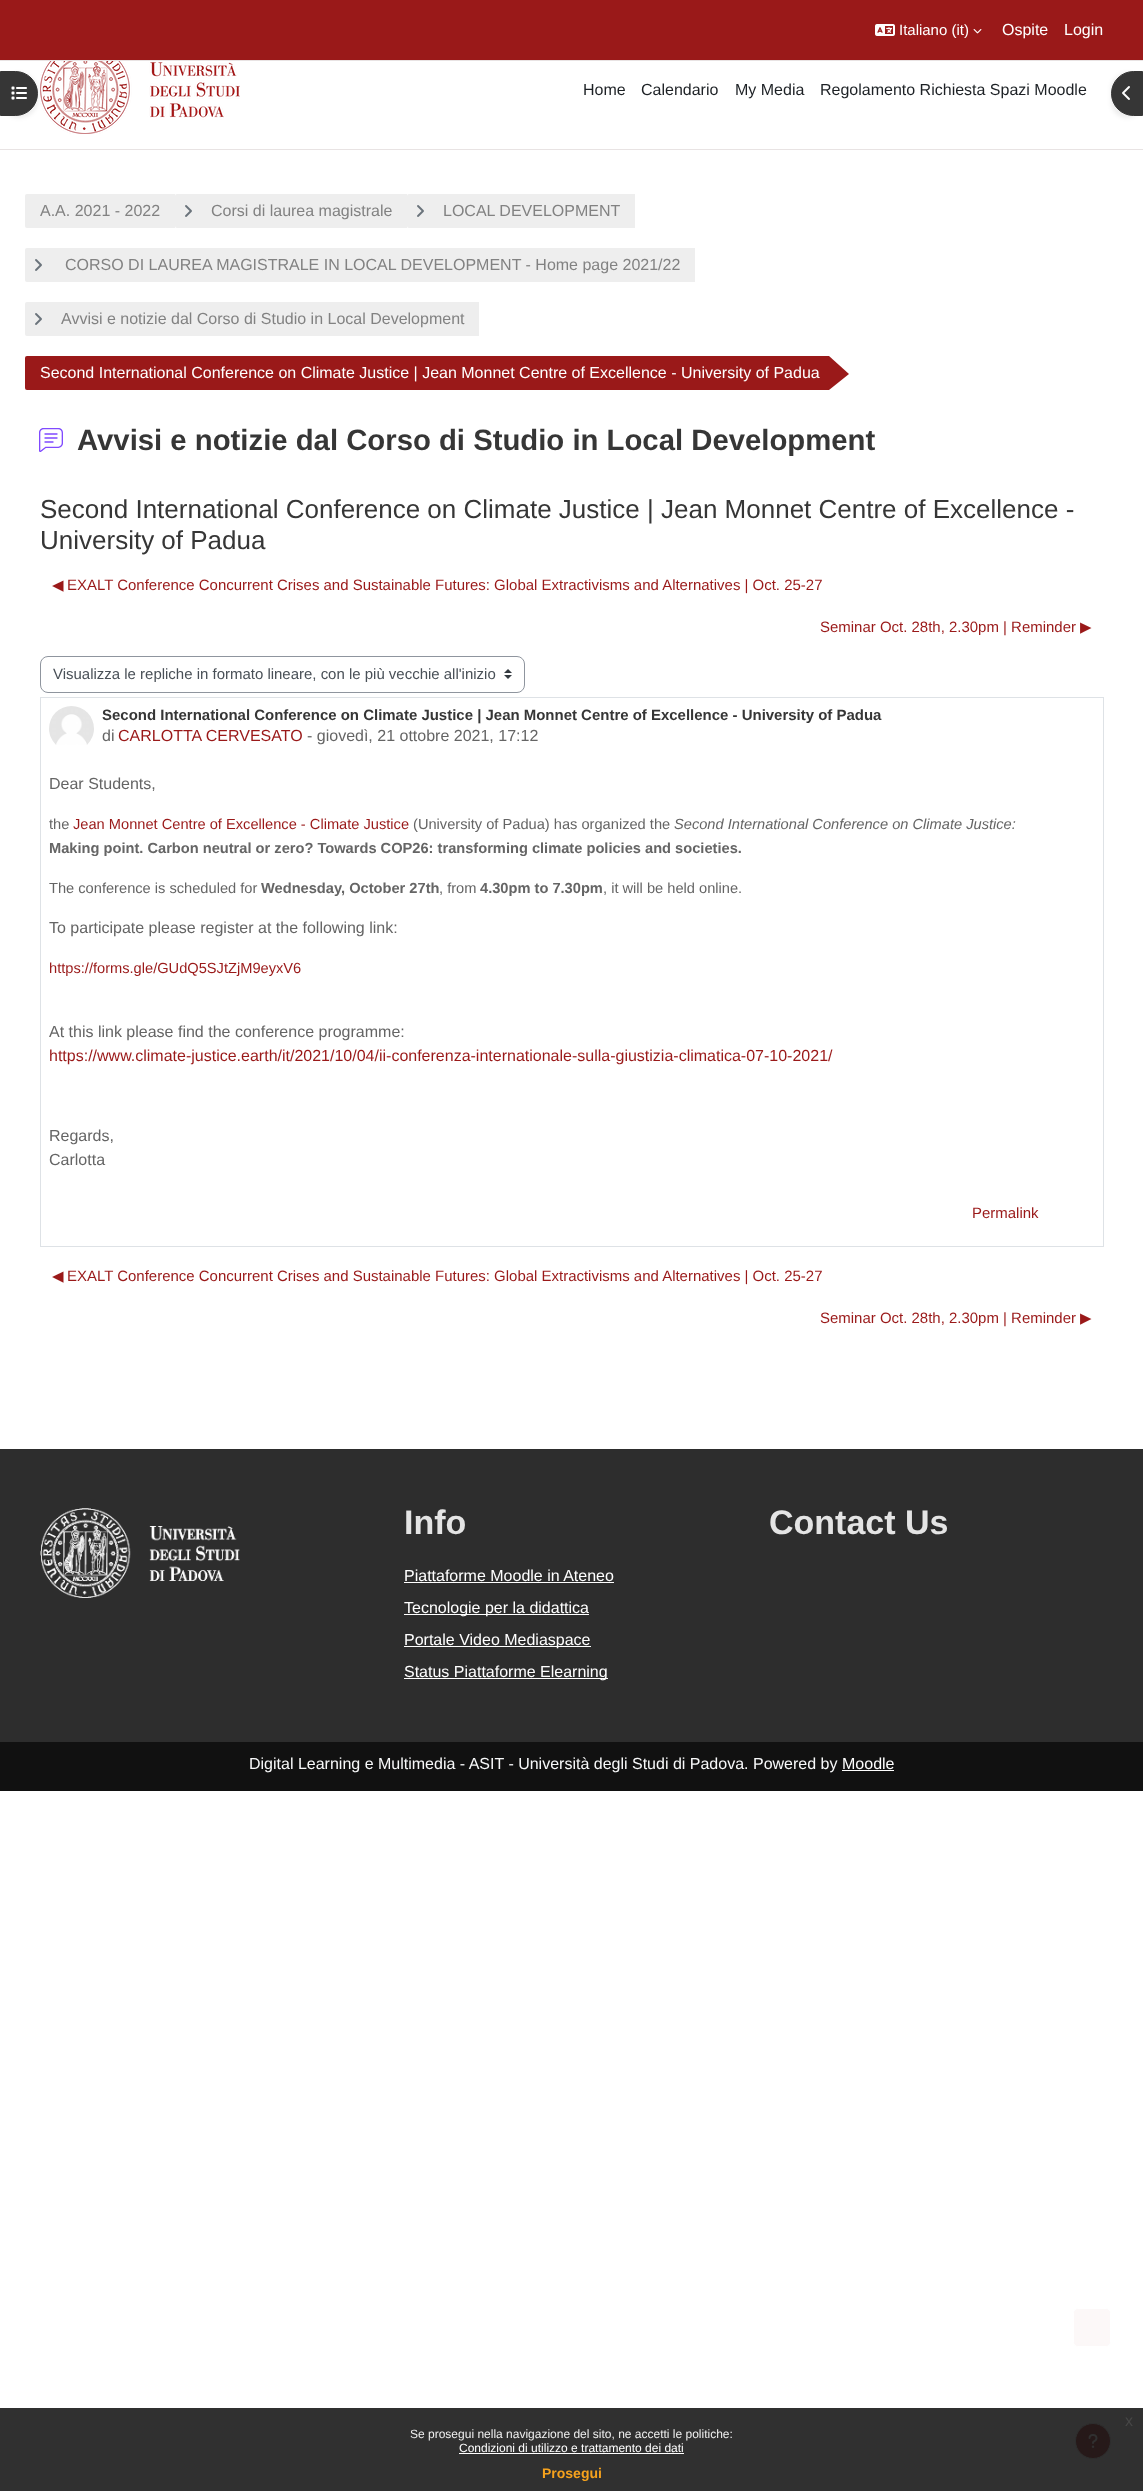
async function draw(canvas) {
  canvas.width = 1143;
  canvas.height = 2491;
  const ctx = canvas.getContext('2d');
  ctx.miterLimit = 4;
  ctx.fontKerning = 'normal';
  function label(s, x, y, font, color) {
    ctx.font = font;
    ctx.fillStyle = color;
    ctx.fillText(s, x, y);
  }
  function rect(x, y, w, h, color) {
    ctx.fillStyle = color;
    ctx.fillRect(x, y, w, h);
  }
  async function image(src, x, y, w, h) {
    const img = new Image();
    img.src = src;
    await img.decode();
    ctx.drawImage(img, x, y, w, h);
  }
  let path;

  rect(0, 0, 1143, 2491, '#fff');
  rect(0, 2408, 1143, 83, '#303030');
  rect(0, 0, 1143, 60, '#9a1919');
  rect(0, 60, 1143, 1, '#e8e3e3');
  await image('assets/img1.png', 875, 24, 20, 12);
  label('Italiano (it)', 899, 35, '14.97px Liberation Sans', '#fff');
  await image('assets/img2.png', 973, 29, 9, 5);
  label('Ospite', 1002, 35, '16px Liberation Sans', '#fff');
  label('Login', 1064, 35, '16px Liberation Sans', '#fff');
  rect(0, 149, 1143, 1, '#e8e3e3');
  await image('assets/img3.png', 40, 61, 200, 73);
  label('Home', 583, 95, '16px Liberation Sans', '#1d2125');
  label('Calendario', 641, 95, '16px Liberation Sans', '#1d2125');
  label('My Media', 735, 95, '16px Liberation Sans', '#1d2125');
  label('Regolamento Richiesta Spazi Moodle', 820, 95, '16px Liberation Sans', '#1d2125');
  ctx.fillStyle = '#00000012';
  ctx.filter = 'blur(2px)';
  ctx.beginPath();
  ctx.roundRect(0, 73, 38, 45, 23);
  ctx.fill();
  ctx.filter = 'none';
  ctx.fillStyle = '#363636';
  ctx.beginPath();
  ctx.roundRect(0.5, 71.5, 37, 44, [0, 22, 22, 0]);
  ctx.fill();
  ctx.strokeStyle = '#363636';
  ctx.stroke();
  await image('assets/img4.png', 11, 86, 16, 14);
  ctx.fillStyle = '#00000012';
  ctx.filter = 'blur(2px)';
  ctx.beginPath();
  ctx.roundRect(1111, 73, 32, 45, 23);
  ctx.fill();
  ctx.filter = 'none';
  ctx.fillStyle = '#363636';
  ctx.beginPath();
  ctx.roundRect(1111.5, 71.5, 31, 44, [22, 0, 0, 22]);
  ctx.fill();
  ctx.stroke();
  await image('assets/img5.png', 1122, 86, 8, 14);
  ctx.fillStyle = '#eee';
  ctx.beginPath();
  ctx.roundRect(25, 194, 150, 34, [2, 0, 0, 2]);
  ctx.fill();
  label('A.A. 2021 - 2022', 40, 216, '16px Liberation Sans', '#828282');
  ctx.fillStyle = '#eee';
  ctx.beginPath();
  ctx.roundRect(175, 194, 232, 34, [2, 0, 0, 2]);
  ctx.fill();
  await image('assets/img6.png', 185, 205, 7, 12);
  label('Corsi di laurea magistrale', 211, 216, '16px Liberation Sans', '#828282');
  ctx.fillStyle = '#eee';
  ctx.beginPath();
  ctx.roundRect(407, 194, 228, 34, [2, 0, 0, 2]);
  ctx.fill();
  await image('assets/img6.png', 417, 205, 7, 12);
  label('LOCAL DEVELOPMENT', 443, 216, '16px Liberation Sans', '#828282');
  ctx.fillStyle = '#eee';
  ctx.beginPath();
  ctx.roundRect(25, 248, 670, 34, [2, 0, 0, 2]);
  ctx.fill();
  await image('assets/img6.png', 35, 259, 7, 12);
  label('CORSO DI LAUREA MAGISTRALE IN LOCAL DEVELOPMENT - Home page 2021/22', 65, 270, '16px Liberation Sans', '#828282');
  ctx.fillStyle = '#eee';
  ctx.beginPath();
  ctx.roundRect(25, 302, 454, 34, [2, 0, 0, 2]);
  ctx.fill();
  await image('assets/img6.png', 35, 313, 7, 12);
  label('Avvisi e notizie dal Corso di Studio in Local Development', 61, 324, '16px Liberation Sans', '#828282');
  ctx.fillStyle = '#9a1919';
  ctx.beginPath();
  ctx.roundRect(25, 356, 804, 34, [2, 0, 0, 2]);
  ctx.fill();
  label('Second International Conference on Climate Justice | Jean Monnet Centre of Excellence - University of Padua', 40, 378, '16px Liberation Sans', '#fff');
  ctx.fillStyle = '#9a1919';
  path = new Path2D('M829 390V356L849 374Z');
  ctx.fill(path);
  await image('assets/img7.png', 39, 428, 24, 24);
  label('Avvisi e notizie dal Corso di Studio in Local Development', 77, 450, 'bold 29.3px Liberation Sans', '#363636');
  label('Second International Conference on Climate Justice | Jean Monnet Centre of Excellence -', 40, 518, '26px Liberation Sans', '#363636');
  label('University of Padua', 40, 549, '26px Liberation Sans', '#363636');
  label('◀︎', 52, 590, '14.97px DejaVu Sans', '#9a1919');
  label('EXALT Conference Concurrent Crises and Sustainable Futures: Global Extractivisms and Alternatives | Oct. 25-27', 67, 590, '14.97px Liberation Sans', '#9a1919');
  label('Seminar Oct. 28th, 2.30pm | Reminder', 820, 632, '14.97px Liberation Sans', '#9a1919');
  label('▶︎', 1080, 632, '14.97px DejaVu Sans', '#9a1919');
  await image('assets/img8.png', 504, 669, 8, 10);
  ctx.beginPath();
  ctx.roundRect(40.5, 656.5, 484, 36, 7.5);
  ctx.strokeStyle = '#8f959e';
  ctx.stroke();
  label('Visualizza le repliche in formato lineare, con le più vecchie all\'inizio', 53, 679, '14.97px Liberation Sans', '#495057');
  ctx.strokeStyle = '#dee2e6';
  ctx.strokeRect(40.5, 697.5, 1063, 549);
  await image('assets/img9.png', 49, 706, 45, 39);
  label('Second International Conference on Climate Justice | Jean Monnet Centre of Excellence - University of Padua', 102, 720, 'bold 14.97px Liberation Sans', '#363636');
  label('di', 102, 741, '16px Liberation Sans', '#656565');
  label('CARLOTTA CERVESATO', 118, 741, '16px Liberation Sans', '#9a1919');
  label('- giovedì, 21 ottobre 2021, 17:12', 307, 741, '16px Liberation Sans', '#656565');
  label('Dear Students,', 49, 789, '16px Liberation Sans', '#656565');
  label('the', 49, 829, '14.65px Liberation Sans', '#656565');
  label('Jean Monnet Centre of Excellence - Climate Justice', 73, 829, '14.65px Liberation Sans', '#9a1919');
  label('(University of Padua) has organized the', 413, 829, '14.65px Liberation Sans', '#656565');
  label('Second International Conference on Climate Justice:', 674, 829, 'italic 14.65px Liberation Sans', '#656565');
  label('Making point. Carbon neutral or zero? Towards COP26: transforming climate policies and societies.', 49, 853, 'bold 14.65px Liberation Sans', '#656565');
  label('The conference is scheduled for', 49, 893, '14.65px Liberation Sans', '#656565');
  label('Wednesday, October 27th', 261, 893, 'bold 14.65px Liberation Sans', '#656565');
  label(', from', 439, 893, '14.65px Liberation Sans', '#656565');
  label('4.30pm to 7.30pm', 480, 893, 'bold 14.65px Liberation Sans', '#656565');
  label(', it will be held online.', 603, 893, '14.65px Liberation Sans', '#656565');
  label('To participate please register at the following link:', 49, 933, '16px Liberation Sans', '#656565');
  label('https://forms.gle/GUdQ5SJtZjM9eyxV6', 49, 973, '14.65px Liberation Sans', '#9a1919');
  label('At this link please find the conference programme:', 49, 1037, '16px Liberation Sans', '#656565');
  label('https://www.climate-justice.earth/it/2021/10/04/ii-conferenza-internationale-sulla-giustizia-climatica-07-10-2021/', 49, 1061, '16px Liberation Sans', '#9a1919');
  label('Regards,', 49, 1141, '16px Liberation Sans', '#656565');
  label('Carlotta', 49, 1165, '16px Liberation Sans', '#656565');
  label('Permalink', 972, 1218, '14.97px Liberation Sans', '#9a1919');
  label('◀︎', 52, 1281, '14.97px DejaVu Sans', '#9a1919');
  label('EXALT Conference Concurrent Crises and Sustainable Futures: Global Extractivisms and Alternatives | Oct. 25-27', 67, 1281, '14.97px Liberation Sans', '#9a1919');
  label('Seminar Oct. 28th, 2.30pm | Reminder', 820, 1323, '14.97px Liberation Sans', '#9a1919');
  label('▶︎', 1080, 1323, '14.97px DejaVu Sans', '#9a1919');
  rect(0, 1449, 1143, 293, '#2d2d2d');
  await image('assets/img10.png', 40, 1508, 200, 90);
  label('Info', 404, 1534, 'bold 34px Liberation Sans', '#e4e4e4');
  label('Piattaforme Moodle in Ateneo', 404, 1581, '16px Liberation Sans', '#fff');
  rect(404, 1582, 210, 1, '#fff');
  rect(404, 1614, 185, 1, '#fff');
  label('Tecnologie per la didattica', 404, 1613, '16px Liberation Sans', '#fff');
  rect(404, 1646, 187, 1, '#fff');
  label('Portale Video Mediaspace', 404, 1645, '16px Liberation Sans', '#fff');
  rect(404, 1678, 204, 1, '#fff');
  label('Status Piattaforme Elearning', 404, 1677, '16px Liberation Sans', '#fff');
  label('Contact Us', 769, 1534, 'bold 34px Liberation Sans', '#e4e4e4');
  rect(0, 1742, 1143, 49, '#111');
  label('Digital Learning e Multimedia - ASIT - Università degli Studi di Padova. Powered by', 249, 1769, '16px Liberation Sans', '#f8f9fa');
  label('Moodle', 842, 1769, '16px Liberation Sans', '#fff');
  rect(842, 1770, 52, 1, '#fff');
  ctx.fillStyle = '#261919';
  ctx.beginPath();
  ctx.arc(1093, 2441, 17.5, 0, 2 * Math.PI);
  ctx.fill();
  ctx.strokeStyle = '#2e2e2e';
  ctx.stroke();
  await image('assets/img11.png', 1088, 2434, 10, 14);
  ctx.fillStyle = '#fcf8f8';
  ctx.beginPath();
  ctx.roundRect(1073.5, 2308.5, 37, 38, 4.5);
  ctx.fill();
  ctx.strokeStyle = '#fff';
  ctx.stroke();
  label('x', 1125, 2426, '16px Liberation Sans', '#474747');
  label('Se prosegui nella navigazione del sito, ne accetti le politiche:', 410, 2438, '12px Liberation Sans', '#efefef');
  label('Condizioni di utilizzo e trattamento dei dati', 459, 2452, '12px Liberation Sans', '#fff');
  rect(459, 2453, 225, 1, '#fff');
  label('Prosegui', 542, 2478, 'bold 14px Liberation Sans', '#f6a21d');
}

draw(document.querySelector('canvas'));
